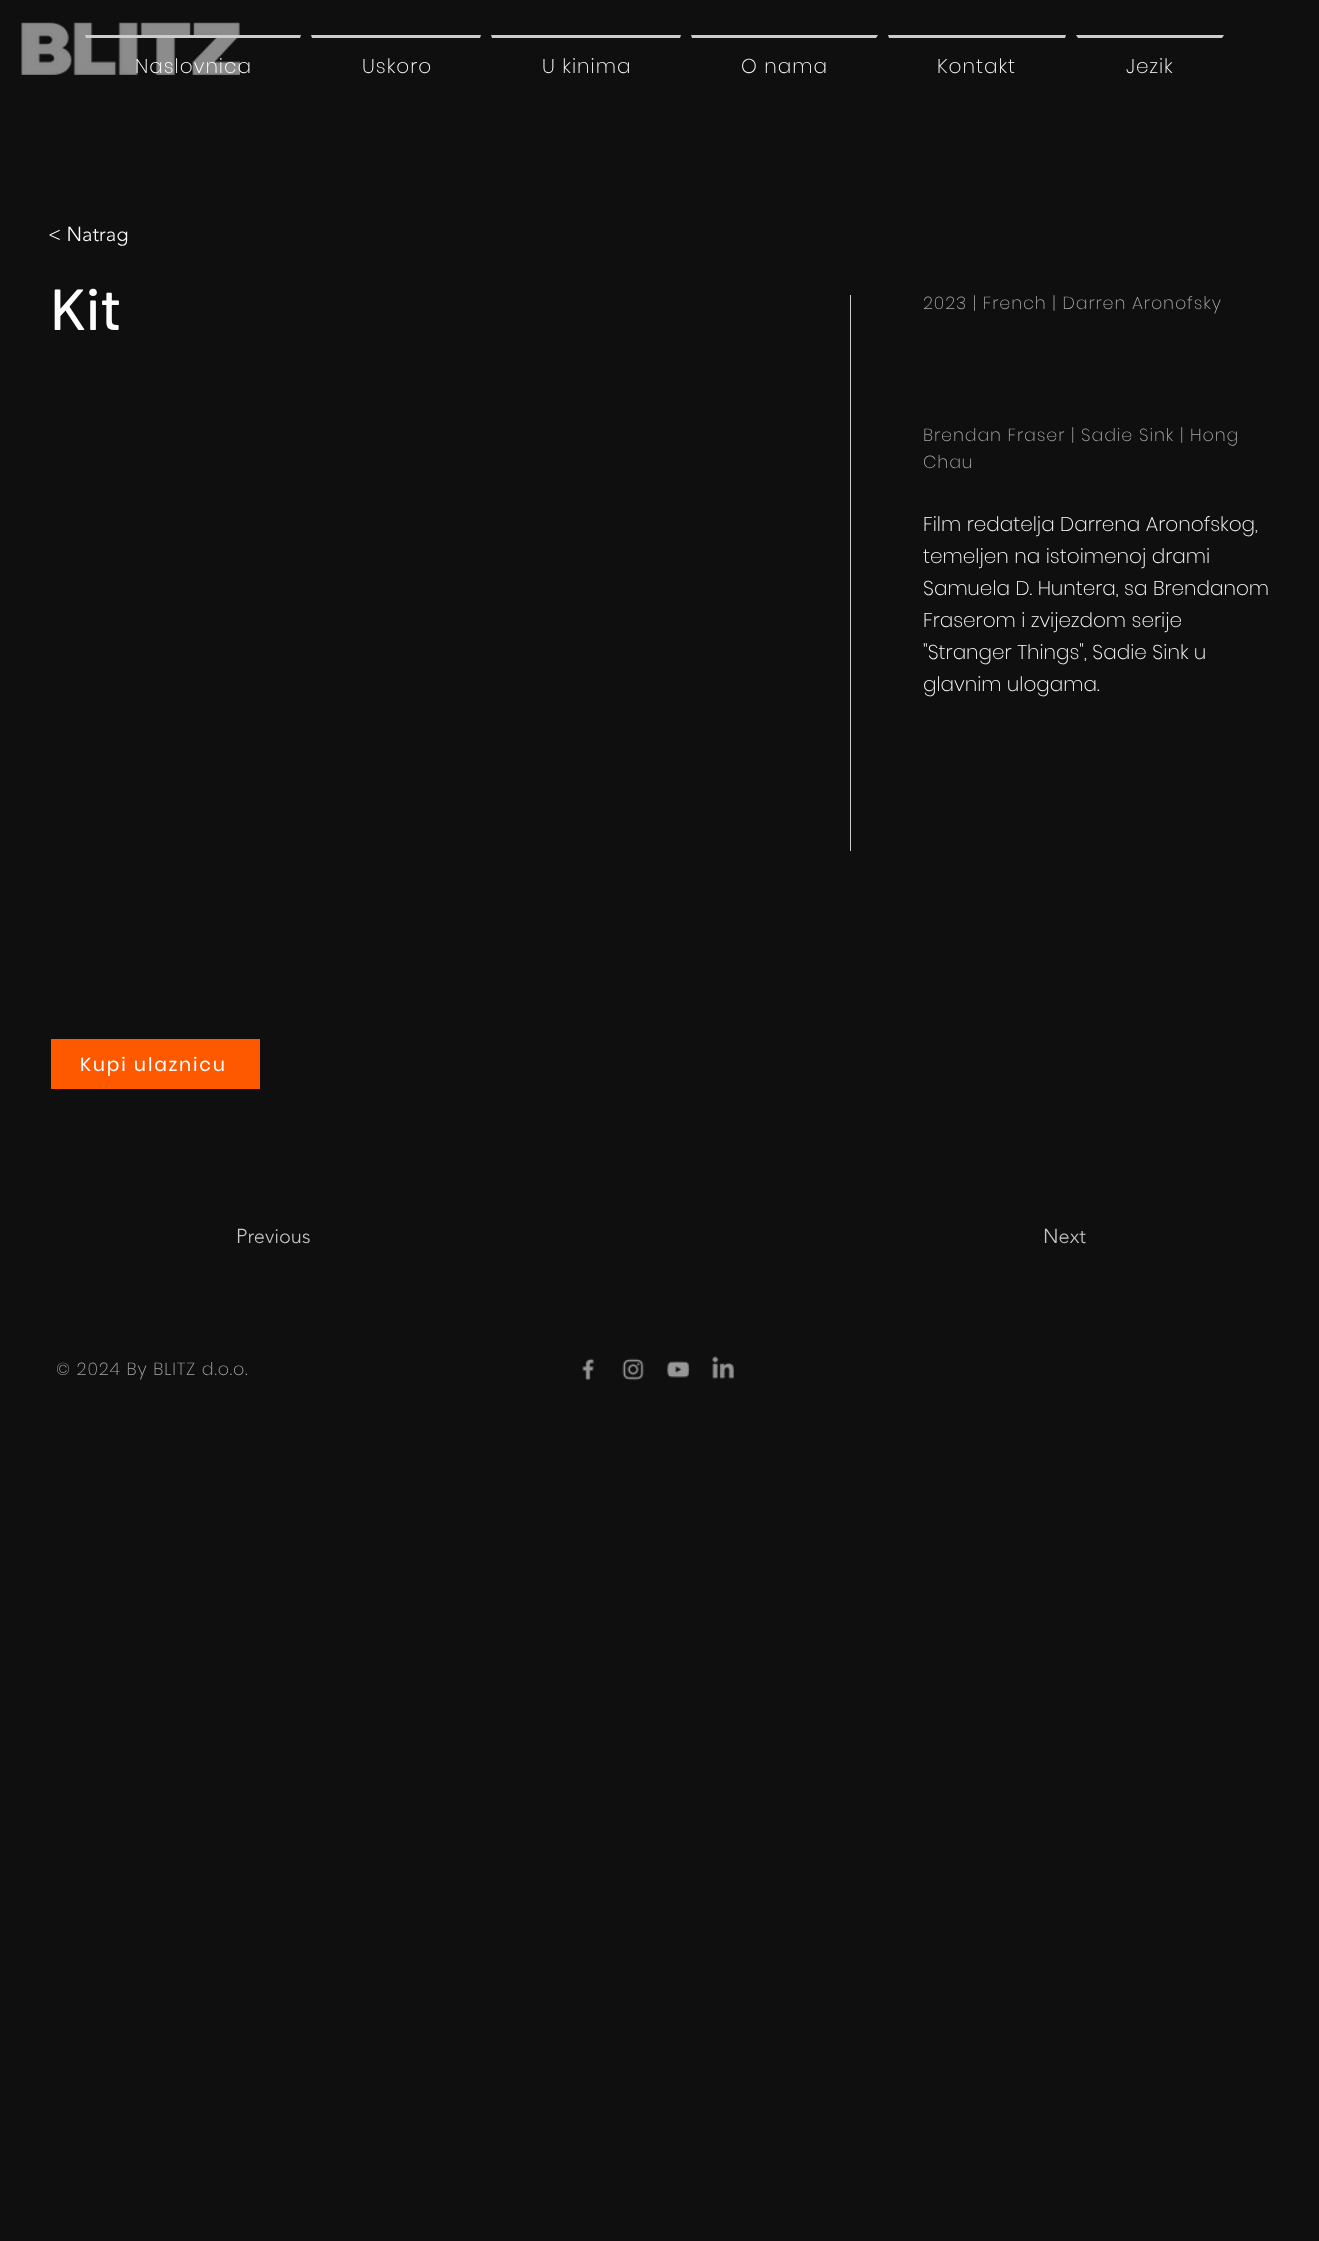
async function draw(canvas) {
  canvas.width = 1319;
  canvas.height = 2241;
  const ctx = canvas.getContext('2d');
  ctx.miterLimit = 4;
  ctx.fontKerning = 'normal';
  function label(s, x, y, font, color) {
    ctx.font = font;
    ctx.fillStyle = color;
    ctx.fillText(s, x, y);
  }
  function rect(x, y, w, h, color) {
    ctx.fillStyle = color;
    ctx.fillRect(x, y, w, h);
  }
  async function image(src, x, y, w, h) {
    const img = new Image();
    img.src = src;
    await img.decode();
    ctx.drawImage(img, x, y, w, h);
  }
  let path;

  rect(0, 0, 1319, 2241, '#0f0f0f');
  await image('assets/img1.png', 21, 22, 219, 53);
  ctx.fillStyle = '#ccc';
  path = new Path2D('M85 35H301L300 38H86Z');
  ctx.fill(path);
  ctx.letterSpacing = '1px';
  label('Naslovnica', 135, 73, '200 20px Poppins', '#fff');
  ctx.fillStyle = '#ccc';
  path = new Path2D('M311 35H481L480 38H312Z');
  ctx.fill(path);
  label('Uskoro', 362, 73, '200 20px Poppins', '#fff');
  ctx.fillStyle = '#ccc';
  path = new Path2D('M491 35H681L680 38H492Z');
  ctx.fill(path);
  label('U kinima', 542, 73, '200 20px Poppins', '#fff');
  ctx.fillStyle = '#ccc';
  path = new Path2D('M691 35H878L876 38H692Z');
  ctx.fill(path);
  label('O nama', 741, 73, '200 20px Poppins', '#fff');
  ctx.fillStyle = '#ccc';
  path = new Path2D('M888 35H1066L1065 38H889Z');
  ctx.fill(path);
  label('Kontakt', 937, 73, '200 20px Poppins', '#fff');
  ctx.fillStyle = '#ccc';
  path = new Path2D('M1076 35H1224L1222 38H1078Z');
  ctx.fill(path);
  label('Jezik', 1126, 73, '200 20px Poppins', '#fff');
  ctx.letterSpacing = '0px';
  label('< Natrag', 48, 241, '300 20px "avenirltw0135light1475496"', '#fff');
  label('Kit', 50, 330, '500 58px Barlow', '#fff');
  rect(850, 295, 1, 556, '#cccaca');
  ctx.letterSpacing = '0.9px';
  label('2023 | French | Darren Aronofsky', 923, 309, '200 17.5px Poppins', '#a8a8a8');
  label('Brendan Fraser | Sadie Sink | Hong', 923, 441, '200 17.5px Poppins', '#a8a8a8');
  label('Chau', 923, 468, '200 17.5px Poppins', '#a8a8a8');
  ctx.letterSpacing = '0px';
  label('Film redatelja Darrena Aronofskog,', 923, 531, '200 20px Poppins', '#fff');
  label('temeljen na istoimenoj drami', 923, 563, '200 20px Poppins', '#fff');
  label('Samuela D. Huntera, sa Brendanom', 923, 595, '200 20px Poppins', '#fff');
  label('Fraserom i zvijezdom serije', 923, 627, '200 20px Poppins', '#fff');
  label('"Stranger Things", Sadie Sink u', 923, 659, '200 20px Poppins', '#fff');
  label('glavnim ulogama.', 923, 691, '200 20px Poppins', '#fff');
  rect(51, 1039, 209, 50, '#ff5900');
  ctx.letterSpacing = '1.9px';
  label('Kupi ulaznicu', 80, 1071, '18.75px Poppins', '#fff');
  ctx.letterSpacing = '0px';
  label('Previous', 236, 1243, '300 20px "avenirltw0135light1475496"', '#c7c7c7');
  label('Next', 1043, 1243, '300 20px "avenirltw0135light1475496"', '#c7c7c7');
  ctx.letterSpacing = '0.9px';
  label('© 2024 By BLITZ d.o.o.', 56, 1375, '200 17.5px Poppins', '#a8a8a8');
  await image('assets/img2.png', 582, 1358, 12, 23);
  await image('assets/img3.png', 622, 1358, 22, 23);
  await image('assets/img4.png', 667, 1361, 23, 17);
  await image('assets/img5.png', 712, 1356, 22, 23);
}

draw(document.querySelector('canvas'));
